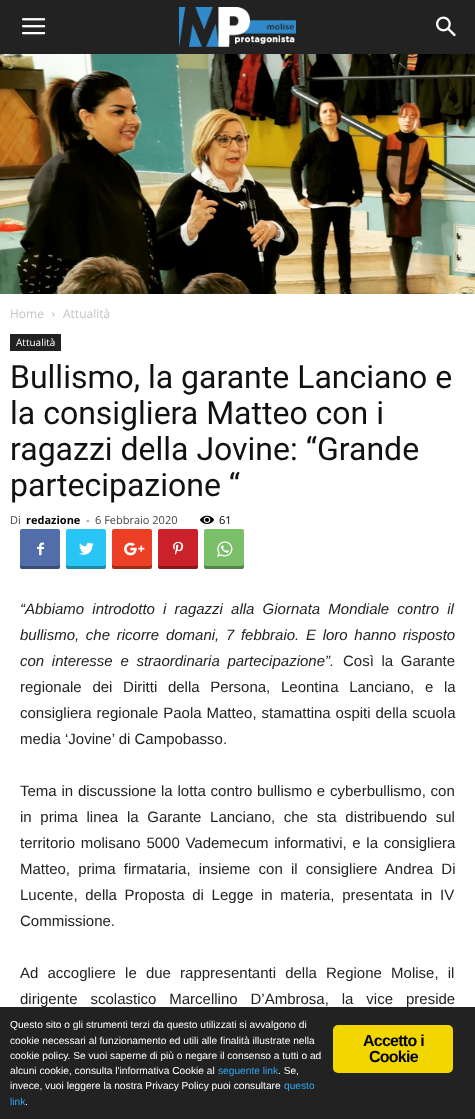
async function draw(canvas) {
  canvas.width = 475;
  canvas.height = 1119;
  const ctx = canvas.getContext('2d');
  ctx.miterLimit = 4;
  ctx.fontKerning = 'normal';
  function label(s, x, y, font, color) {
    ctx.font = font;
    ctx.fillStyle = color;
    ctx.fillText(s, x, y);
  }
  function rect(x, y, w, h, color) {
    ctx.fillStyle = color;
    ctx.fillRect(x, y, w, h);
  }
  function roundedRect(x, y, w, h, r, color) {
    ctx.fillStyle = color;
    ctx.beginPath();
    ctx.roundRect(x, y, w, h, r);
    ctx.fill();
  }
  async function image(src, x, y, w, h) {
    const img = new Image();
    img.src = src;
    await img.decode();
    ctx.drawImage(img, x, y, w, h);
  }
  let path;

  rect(0, 0, 475, 1119, '#fff');
  rect(0, 0, 475, 54, '#222');
  await image('assets/img1.png', 22, 18, 24, 17);
  await image('assets/img2.png', 179, 7, 117, 40);
  await image('assets/img3.png', 436, 16, 20, 21);
  await image('assets/img4.png', 0, 54, 475, 240);
  label('Home', 10, 318, '12px Open Sans', '#c3c3c3');
  await image('assets/img5.png', 52, 312, 3, 5);
  label('Attualità', 63, 318, '12px Open Sans', '#c3c3c3');
  rect(10, 334, 51, 17, '#222');
  label('Attualità', 16, 346, '10px Open Sans', '#fff');
  label('Bullismo, la garante Lanciano e', 10, 388, '32px Roboto', '#111');
  label('la consigliera Matteo con i', 10, 424, '32px Roboto', '#111');
  label('ragazzi della Jovine: “Grande', 10, 460, '32px Roboto', '#111');
  label('partecipazione “', 10, 496, '32px Roboto', '#111');
  label('Di', 10, 524, '11px Open Sans', '#444');
  label('redazione', 26, 524, 'bold 11px Open Sans', '#000');
  label('-', 86, 524, '11px Open Sans', '#444');
  label('6 Febbraio 2020', 95, 524, '11px Open Sans', '#444');
  await image('assets/img6.png', 200, 515, 14, 9);
  label('61', 219, 524, '11px Open Sans', '#000');
  roundedRect(20, 529, 40, 40, 2, '#516eab');
  ctx.save();
  ctx.beginPath();
  ctx.rect(20, 529, 40, 40);
  ctx.clip();
  ctx.fillStyle = '#0000004f';
  path = new Path2D('M20 565C20 571 22 569 28 569H52C59 569 60 571 60 564V565L57 566H22Z');
  ctx.fill(path);
  ctx.restore();
  await image('assets/img7.png', 37, 542, 7, 14);
  roundedRect(66, 529, 40, 40, 2, '#29c5f6');
  ctx.save();
  ctx.beginPath();
  ctx.rect(66, 529, 40, 40);
  ctx.clip();
  ctx.fillStyle = '#0000004f';
  path = new Path2D('M66 565C66 571 68 569 74 569H98C105 569 106 571 106 564V565L103 566H68Z');
  ctx.fill(path);
  ctx.restore();
  await image('assets/img8.png', 79, 542, 15, 13);
  roundedRect(112, 529, 40, 40, 2, '#eb4026');
  ctx.save();
  ctx.beginPath();
  ctx.rect(112, 529, 40, 40);
  ctx.clip();
  ctx.fillStyle = '#0000004f';
  path = new Path2D('M112 565C112 571 114 569 120 569H144C151 569 152 571 152 564V565L149 566H114Z');
  ctx.fill(path);
  ctx.restore();
  await image('assets/img9.png', 124, 542, 21, 14);
  roundedRect(158, 529, 40, 40, 2, '#ca212a');
  ctx.save();
  ctx.beginPath();
  ctx.rect(158, 529, 40, 40);
  ctx.clip();
  ctx.fillStyle = '#0000004f';
  path = new Path2D('M158 565C158 571 160 569 166 569H190C197 569 198 571 198 564V565L195 566H160Z');
  ctx.fill(path);
  ctx.restore();
  await image('assets/img10.png', 173, 541, 11, 14);
  roundedRect(204, 529, 40, 40, 2, '#7bbf6a');
  ctx.save();
  ctx.beginPath();
  ctx.rect(204, 529, 40, 40);
  ctx.clip();
  ctx.fillStyle = '#0000004f';
  path = new Path2D('M204 565C204 571 206 569 212 569H236C243 569 244 571 244 564V565L241 566H206Z');
  ctx.fill(path);
  ctx.restore();
  await image('assets/img11.png', 217, 541, 16, 16);
  ctx.wordSpacing = '4px';
  label('“Abbiamo introdotto i ragazzi alla Giornata Mondiale contro il', 20, 614, 'italic 15px Liberation Sans', '#222');
  ctx.wordSpacing = '2.5px';
  label('bullismo, che ricorre domani, 7 febbraio. E loro hanno risposto', 20, 640, 'italic 15px Liberation Sans', '#222');
  ctx.wordSpacing = '3.5px';
  label('con interesse e straordinaria partecipazione”.', 20, 666, 'italic 15px Liberation Sans', '#222');
  label('Così la Garante', 343, 666, '15px Liberation Sans', '#222');
  ctx.wordSpacing = '6.5px';
  label('regionale dei Diritti della Persona, Leontina Lanciano, e la', 20, 692, '15px Liberation Sans', '#222');
  ctx.wordSpacing = '0.75px';
  label('consigliera regionale Paola Matteo, stamattina ospiti della scuola', 20, 718, '15px Liberation Sans', '#222');
  ctx.wordSpacing = '0px';
  label('media ‘Jovine’ di Campobasso.', 20, 744, '15px Liberation Sans', '#222');
  ctx.wordSpacing = '0.6px';
  label('Tema in discussione la lotta contro bullismo e cyberbullismo, con', 20, 796, '15px Liberation Sans', '#222');
  ctx.wordSpacing = '4.5px';
  label('in prima linea la Garante Lanciano, che sta distribuendo sul', 20, 822, '15px Liberation Sans', '#222');
  ctx.wordSpacing = '1.5px';
  label('territorio molisano 5000 Vademecum informativi, e la consigliera', 20, 848, '15px Liberation Sans', '#222');
  ctx.wordSpacing = '4px';
  label('Matteo, prima firmataria, insieme con il consigliere Andrea Di', 20, 874, '15px Liberation Sans', '#222');
  ctx.wordSpacing = '3.5px';
  label('Lucente, della Proposta di Legge in materia, presentata in IV', 20, 900, '15px Liberation Sans', '#222');
  ctx.wordSpacing = '0px';
  label('Commissione.', 20, 926, '15px Liberation Sans', '#222');
  ctx.wordSpacing = '5px';
  label('Ad accogliere le due rappresentanti della Regione Molise, il', 20, 978, '15px Liberation Sans', '#222');
  ctx.wordSpacing = '8.75px';
  label('dirigente scolastico Marcellino D’Ambrosa, la vice preside', 20, 1004, '15px Liberation Sans', '#222');
  rect(0, 1007, 475, 112, '#222');
  ctx.wordSpacing = '0px';
  label('Questo sito o gli strumenti terzi da questo utilizzati si avvalgono di', 10, 1028, '10.2px Liberation Sans', '#fff');
  label('cookie necessari al funzionamento ed utili alle finalità illustrate nella', 10, 1044, '10.2px Liberation Sans', '#fff');
  label('cookie policy. Se vuoi saperne di più o negare il consenso a tutti o ad', 10, 1059, '10.2px Liberation Sans', '#fff');
  label('alcuni cookie, consulta l\'informativa Cookie al', 10, 1074, '10.2px Liberation Sans', '#fff');
  label('seguente link', 218, 1074, '10.2px Liberation Sans', '#31a8f0');
  label('. Se,', 278, 1074, '10.2px Liberation Sans', '#fff');
  label('invece, vuoi leggere la nostra Privacy Policy puoi consultare', 10, 1089, '10.2px Liberation Sans', '#fff');
  label('questo', 284, 1089, '10.2px Liberation Sans', '#31a8f0');
  label('link', 10, 1105, '10.2px Liberation Sans', '#31a8f0');
  label('.', 25, 1105, '10.2px Liberation Sans', '#fff');
  roundedRect(333, 1025, 120, 48, 5, '#f1d600');
  ctx.letterSpacing = '-0.75px';
  label('Accetto i', 363, 1046, 'bold 16px Liberation Sans', '#000');
  label('Cookie', 369, 1062, 'bold 16px Liberation Sans', '#000');
}

draw(document.querySelector('canvas'));
